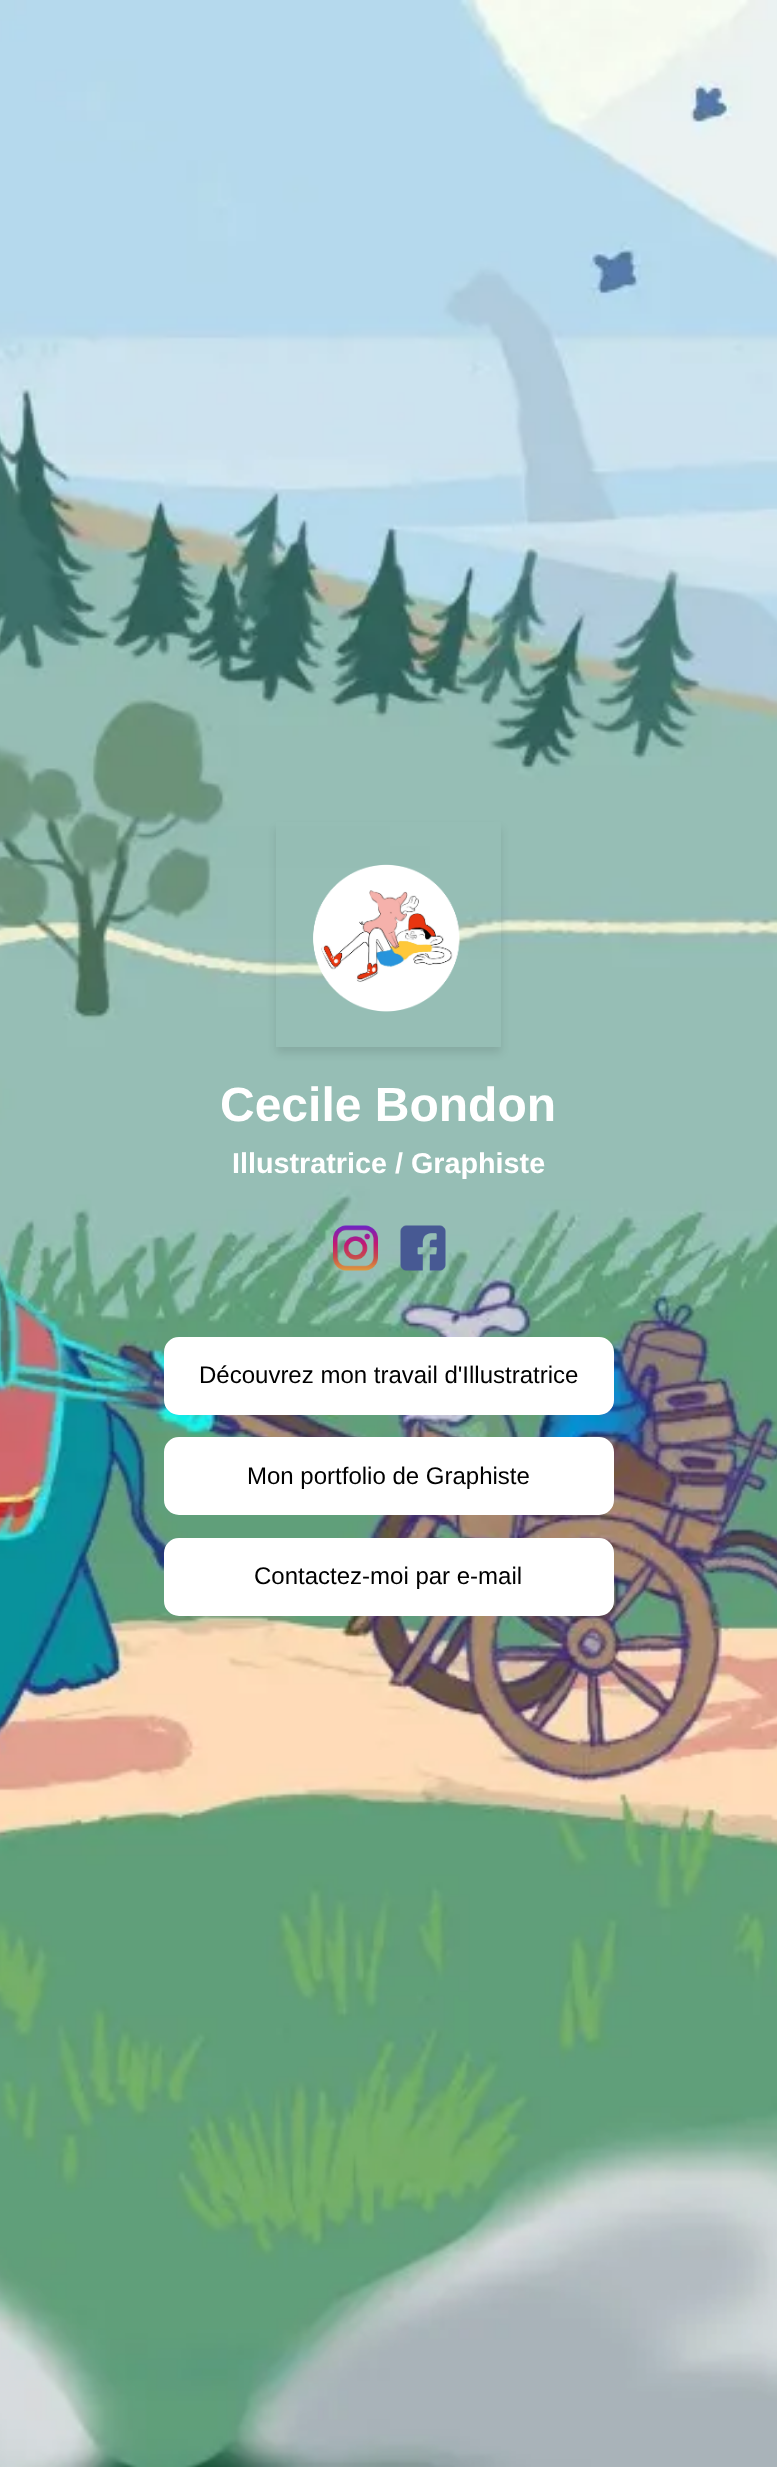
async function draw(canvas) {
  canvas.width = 777;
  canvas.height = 2467;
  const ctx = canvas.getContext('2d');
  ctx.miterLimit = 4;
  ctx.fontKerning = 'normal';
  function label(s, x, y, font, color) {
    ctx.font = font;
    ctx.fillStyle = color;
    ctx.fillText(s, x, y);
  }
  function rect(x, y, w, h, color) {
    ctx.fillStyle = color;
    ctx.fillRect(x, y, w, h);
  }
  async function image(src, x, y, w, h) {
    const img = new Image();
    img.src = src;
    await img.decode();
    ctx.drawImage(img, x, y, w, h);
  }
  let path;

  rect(0, 0, 777, 2467, '#fff');
  await image('assets/img1.png', 0, 0, 777, 2467);
  ctx.save();
  path = new Path2D('M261 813H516V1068H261ZM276 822H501V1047H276Z');
  ctx.clip(path, 'evenodd');
  ctx.fillStyle = '#0000001a';
  ctx.filter = 'blur(4.5px)';
  ctx.beginPath();
  ctx.rect(276, 828, 225, 225);
  ctx.fill();
  ctx.filter = 'none';
  ctx.restore();
  await image('assets/img2.png', 313, 864, 147, 148);
  label('Cecile Bondon', 220, 1121, 'bold 48px Liberation Sans', '#fff');
  label('Illustratrice / Graphiste', 232, 1173, 'bold 28.75px Liberation Sans', '#fff');
  await image('assets/img3.png', 333, 1225, 45, 46);
  await image('assets/img4.png', 400, 1225, 46, 46);
  ctx.beginPath();
  ctx.roundRect(165.5, 1338.5, 447, 75, 13.5);
  ctx.fill();
  ctx.strokeStyle = '#fff';
  ctx.lineWidth = 3;
  ctx.stroke();
  label('Découvrez mon travail d\'Illustratrice', 199, 1383, '24px Liberation Sans', '#000');
  ctx.fillStyle = '#fff';
  ctx.beginPath();
  ctx.roundRect(165.5, 1438.5, 447, 75, 13.5);
  ctx.fill();
  ctx.stroke();
  label('Mon portfolio de Graphiste', 247, 1484, '24px Liberation Sans', '#000');
  ctx.fillStyle = '#fff';
  ctx.beginPath();
  ctx.roundRect(165.5, 1539.5, 447, 75, 13.5);
  ctx.fill();
  ctx.stroke();
  label('Contactez-moi par e-mail', 254, 1584, '24px Liberation Sans', '#000');
}

draw(document.querySelector('canvas'));
